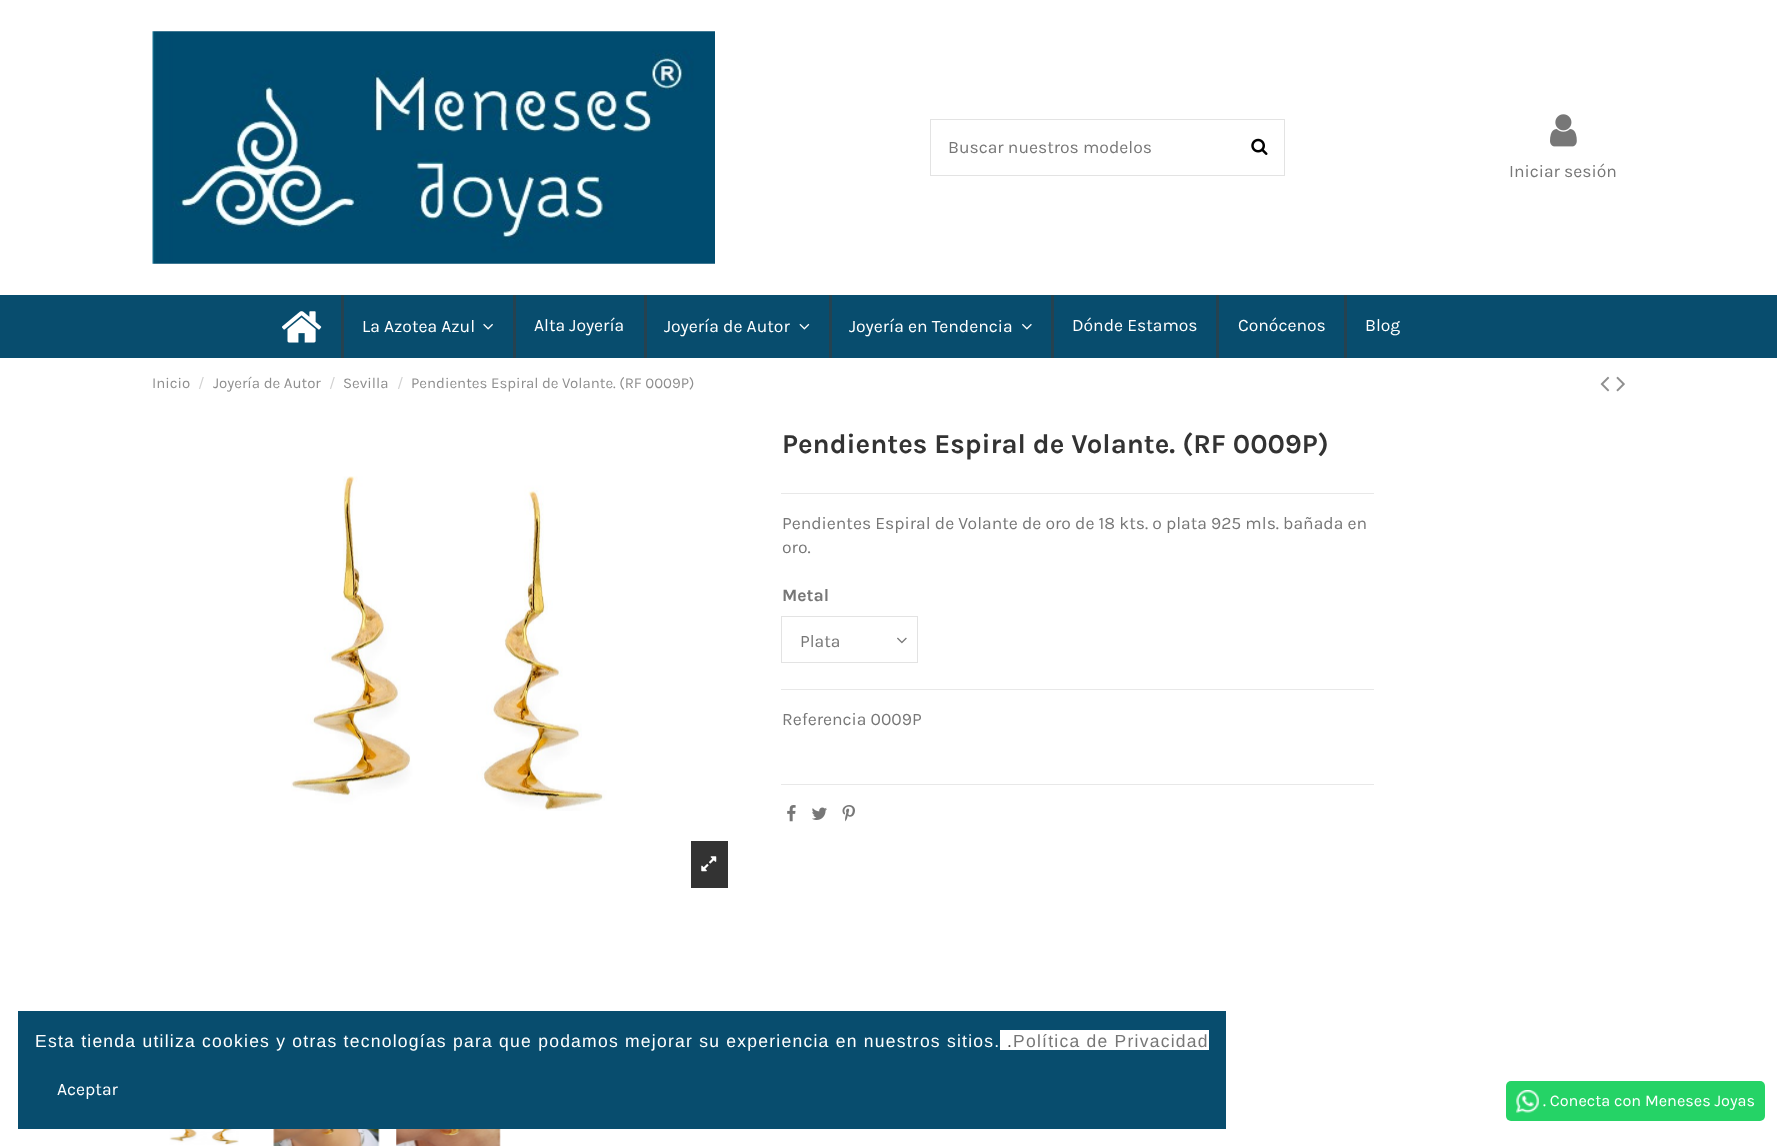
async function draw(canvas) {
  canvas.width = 1777;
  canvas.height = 1146;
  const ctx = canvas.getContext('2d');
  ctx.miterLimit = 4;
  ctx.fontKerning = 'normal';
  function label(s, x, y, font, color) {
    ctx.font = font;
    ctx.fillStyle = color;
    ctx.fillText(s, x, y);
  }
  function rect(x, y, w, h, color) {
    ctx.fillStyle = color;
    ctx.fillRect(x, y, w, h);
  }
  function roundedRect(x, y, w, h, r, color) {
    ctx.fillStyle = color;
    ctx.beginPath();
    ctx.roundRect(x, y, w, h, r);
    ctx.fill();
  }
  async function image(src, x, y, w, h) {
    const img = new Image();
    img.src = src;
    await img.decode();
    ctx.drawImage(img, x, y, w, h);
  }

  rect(0, 0, 1777, 1146, '#fff');
  await image('assets/img1.png', 152, 31, 563, 233);
  ctx.strokeStyle = '#e3e3e3';
  ctx.strokeRect(930.5, 119.5, 354, 56);
  label('Buscar nuestros modelos', 948, 153, '17.5px Karla', '#777');
  await image('assets/img2.png', 1251, 138, 17, 17);
  await image('assets/img3.png', 1550, 114, 27, 33);
  label('Iniciar sesión', 1509, 177, '17.5px Karla', '#777');
  rect(0, 295, 1777, 63, '#084d6e');
  await image('assets/img4.png', 282, 311, 40, 32);
  rect(341, 295, 3, 63, '#254250');
  label('La Azotea Azul', 362, 332, '17.5px Karla', '#fff');
  await image('assets/img5.png', 483, 323, 10, 7);
  rect(513, 295, 3, 63, '#254250');
  label('Alta Joyería', 534, 331, '17.5px Karla', '#fff');
  rect(644, 295, 3, 63, '#254250');
  label('Joyería de Autor', 664, 332, '17.5px Karla', '#fff');
  await image('assets/img6.png', 799, 323, 11, 7);
  rect(829, 295, 3, 63, '#254250');
  label('Joyería en Tendencia', 849, 332, '17.5px Karla', '#fff');
  await image('assets/img7.png', 1022, 323, 10, 7);
  rect(1051, 295, 3, 63, '#254250');
  label('Dónde Estamos', 1072, 331, '17.5px Karla', '#fff');
  rect(1216, 295, 3, 63, '#254250');
  label('Conócenos', 1238, 331, '17.5px Karla', '#fff');
  rect(1344, 295, 3, 63, '#254250');
  label('Blog', 1365, 331, '17.5px Karla', '#fff');
  label('Inicio', 152, 388, '15px Karla', '#8f8f8f');
  label('/', 198, 388, '15px Karla', '#d2d2d2');
  label('Joyería de Autor', 213, 388, '15px Karla', '#8f8f8f');
  label('/', 329, 388, '15px Karla', '#d2d2d2');
  label('Sevilla', 343, 388, '15px Karla', '#8f8f8f');
  label('/', 397, 388, '15px Karla', '#d2d2d2');
  label('Pendientes Espiral de Volante. (RF 0009P)', 411, 388, '15px Karla', '#8f8f8f');
  await image('assets/img8.png', 1600, 376, 10, 16);
  await image('assets/img9.png', 1616, 376, 9, 16);
  await image('assets/img10.png', 291, 476, 316, 335);
  rect(691, 841, 37, 47, '#333');
  await image('assets/img11.png', 701, 856, 16, 16);
  await image('assets/img12.png', 169, 1129, 70, 16);
  await image('assets/img13.png', 273, 1129, 107, 17);
  await image('assets/img14.png', 396, 1129, 105, 17);
  rect(781, 493, 593, 1, '#e8e8e8');
  label('Pendientes Espiral de Volante. (RF 0009P)', 782, 453, 'bold 27.5px Karla', '#333');
  label('Pendientes Espiral de Volante de oro de 18 kts. o plata 925 mls. bañada en', 782, 529, '17.5px Karla', '#777');
  label('oro.', 782, 553, '17.5px Karla', '#777');
  label('Metal', 782, 601, 'bold 17.5px Karla', '#777');
  await image('assets/img15.png', 897, 637, 10, 7);
  ctx.strokeRect(781.5, 616.5, 136, 46);
  label('Plata', 800, 647, '17.5px Karla', '#777');
  rect(781, 689, 593, 1, '#e8e8e8');
  label('Referencia 0009P', 782, 725, '17.5px Karla', '#777');
  rect(781, 784, 593, 1, '#e8e8e8');
  await image('assets/img16.png', 787, 805, 9, 17);
  await image('assets/img17.png', 812, 807, 15, 13);
  await image('assets/img18.png', 842, 805, 13, 17);
  rect(18, 1011, 1208, 118, '#084d6e');
  ctx.letterSpacing = '1.25px';
  label('Esta tienda utiliza cookies y otras tecnologías para que podamos mejorar su experiencia en nuestros sitios.', 35, 1047, '17.5px Liberation Sans', '#fff');
  rect(1000, 1030, 209, 20, '#fff');
  label('.', 1007, 1047, '17.5px Liberation Sans', '#4a4a4a');
  label('Política de Privacidad', 1013, 1047, '17.5px Liberation Sans', '#777');
  ctx.letterSpacing = '0px';
  label('Aceptar', 57, 1095, '17.5px Karla', '#fff');
  roundedRect(1506, 1081, 259, 40, 5, '#25d366');
  await image('assets/img19.png', 1516, 1090, 23, 23);
  label('. Conecta con Meneses Joyas', 1543, 1106, '16.25px Karla', '#fff');
}

draw(document.querySelector('canvas'));
